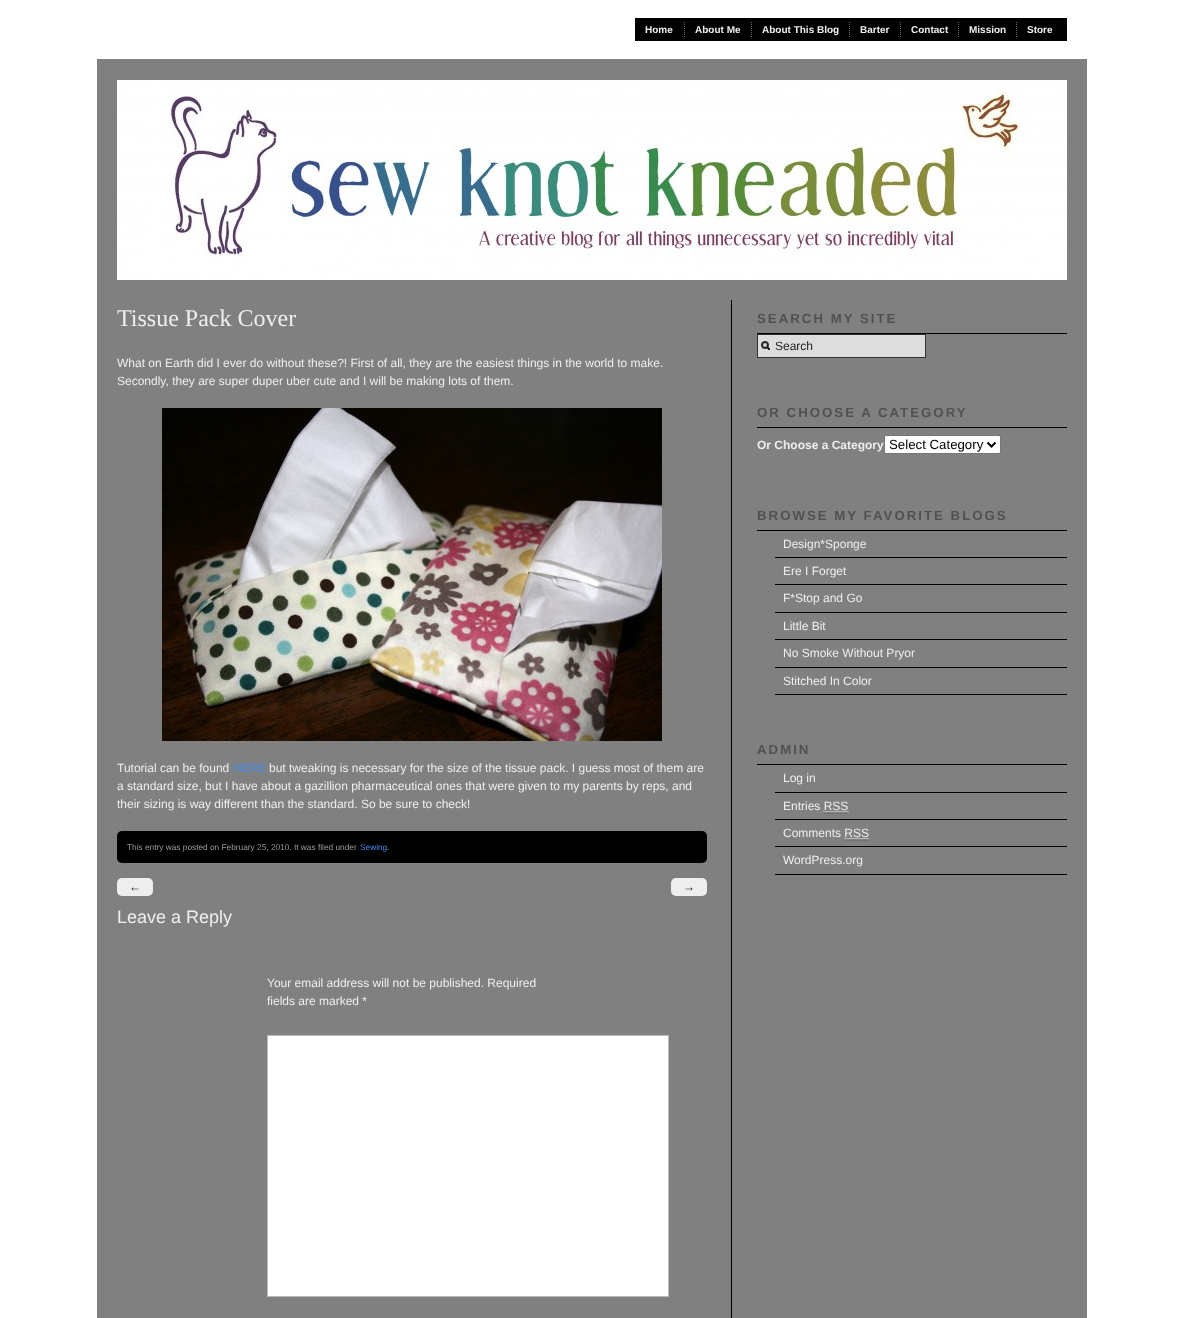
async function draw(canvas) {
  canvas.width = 1184;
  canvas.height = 1318;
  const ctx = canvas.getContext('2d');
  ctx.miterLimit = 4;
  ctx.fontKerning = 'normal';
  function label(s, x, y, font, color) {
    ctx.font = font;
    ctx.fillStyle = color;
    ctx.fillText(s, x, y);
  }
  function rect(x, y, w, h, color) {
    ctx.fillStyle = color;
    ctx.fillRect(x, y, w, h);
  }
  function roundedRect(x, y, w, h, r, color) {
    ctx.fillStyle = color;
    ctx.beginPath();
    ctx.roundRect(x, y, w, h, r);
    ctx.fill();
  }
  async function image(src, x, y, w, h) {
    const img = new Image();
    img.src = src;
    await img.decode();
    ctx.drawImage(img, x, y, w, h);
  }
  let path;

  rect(0, 0, 1184, 1318, '#fff');
  rect(635, 18, 432, 23, '#000');
  path = new Path2D('M684.5 22V37');
  ctx.strokeStyle = '#666';
  ctx.setLineDash([1, 1]);
  ctx.stroke(path);
  label('Home', 645, 33, 'bold 10px Liberation Sans', '#eee');
  path = new Path2D('M751.5 22V37');
  ctx.stroke(path);
  label('About Me', 695, 33, 'bold 10px Liberation Sans', '#eee');
  path = new Path2D('M849.5 22V37');
  ctx.stroke(path);
  label('About This Blog', 762, 33, 'bold 10px Liberation Sans', '#eee');
  path = new Path2D('M900.5 22V37');
  ctx.stroke(path);
  label('Barter', 860, 33, 'bold 10px Liberation Sans', '#eee');
  path = new Path2D('M958.5 22V37');
  ctx.stroke(path);
  label('Contact', 911, 33, 'bold 10px Liberation Sans', '#eee');
  path = new Path2D('M1016.5 22V37');
  ctx.stroke(path);
  label('Mission', 969, 33, 'bold 10px Liberation Sans', '#eee');
  label('Store', 1027, 33, 'bold 10px Liberation Sans', '#eee');
  rect(97, 59, 990, 1259, '#808080');
  await image('assets/img1.png', 117, 80, 950, 200);
  rect(731, 300, 1, 1018, '#000');
  label('Tissue Pack Cover', 117, 326, '24px Liberation Serif', '#eee');
  label('What on Earth did I ever do without these?! First of all, they are the easiest things in the world to make.', 117, 367, '12px Liberation Sans', '#eee');
  label('Secondly, they are super duper uber cute and I will be making lots of them.', 117, 385, '12px Liberation Sans', '#eee');
  await image('assets/img2.png', 162, 408, 500, 333);
  label('Tutorial can be found', 117, 772, '12px Liberation Sans', '#eee');
  label('HERE', 233, 772, '12px Liberation Sans', '#428ce7');
  label('but tweaking is necessary for the size of the tissue pack. I guess most of them are', 269, 772, '12px Liberation Sans', '#eee');
  label('a standard size, but I have about a gazillion pharmaceutical ones that were given to my parents by reps, and', 117, 790, '12px Liberation Sans', '#eee');
  label('their sizing is way different than the standard. So be sure to check!', 117, 808, '12px Liberation Sans', '#eee');
  roundedRect(117, 831, 590, 32, 5, '#000');
  label('This entry was posted on February 25, 2010. It was filed under', 127, 850, '8.3px Liberation Sans', '#999');
  label('Sewing', 360, 850, '8.3px Liberation Sans', '#428ce7');
  label('.', 387, 850, '8.3px Liberation Sans', '#999');
  roundedRect(117, 878, 36, 18, 5, '#eee');
  label('←', 129, 891, '12px Liberation Sans', '#222');
  roundedRect(671, 878, 36, 18, 5, '#eee');
  label('→', 683, 891, '12px Liberation Sans', '#222');
  label('Leave a Reply', 117, 923, '18px Liberation Sans', '#eee');
  label('Your email address will not be published. Required', 267, 987, '12px Liberation Sans', '#eee');
  label('fields are marked *', 267, 1005, '12px Liberation Sans', '#eee');
  ctx.fillStyle = '#fff';
  ctx.beginPath();
  ctx.rect(267.5, 1035.5, 401, 261);
  ctx.fill();
  ctx.strokeStyle = '#bbb';
  ctx.setLineDash([]);
  ctx.stroke();
  rect(757, 333, 310, 1, '#000');
  ctx.letterSpacing = '2px';
  label('SEARCH MY SITE', 757, 323, 'bold 13.25px Liberation Sans', '#515151');
  rect(758, 335, 167, 22, '#ddd');
  await image('assets/img3.png', 761, 341, 9, 9);
  ctx.strokeStyle = '#333';
  ctx.strokeRect(757.5, 334.5, 168, 23);
  ctx.letterSpacing = '0px';
  label('Search', 775, 350, '12px Liberation Sans', '#222');
  rect(757, 427, 310, 1, '#000');
  ctx.letterSpacing = '2px';
  label('OR CHOOSE A CATEGORY', 757, 417, 'bold 13.25px Liberation Sans', '#515151');
  ctx.letterSpacing = '0px';
  label('Or Choose a Category', 757, 449, 'bold 12px Liberation Sans', '#eee');
  ctx.fillStyle = '#fff';
  ctx.beginPath();
  ctx.roundRect(884.5, 435.5, 116, 18, 1.5);
  ctx.fill();
  ctx.strokeStyle = '#767676';
  ctx.stroke();
  path = new Path2D('M987.5 442.5L991.5 446.5L995.5 442.5');
  ctx.strokeStyle = '#000';
  ctx.lineWidth = 2;
  ctx.stroke(path);
  label('Select Category', 889, 449, '13.25px Liberation Sans', '#000');
  rect(757, 530, 310, 1, '#000');
  ctx.letterSpacing = '2px';
  label('BROWSE MY FAVORITE BLOGS', 757, 520, 'bold 13.25px Liberation Sans', '#515151');
  rect(775, 557, 292, 1, '#000');
  ctx.letterSpacing = '0px';
  label('Design*Sponge', 783, 548, '12px Liberation Sans', '#eee');
  rect(775, 584, 292, 1, '#000');
  label('Ere I Forget', 783, 575, '12px Liberation Sans', '#eee');
  rect(775, 612, 292, 1, '#000');
  label('F*Stop and Go', 783, 602, '12px Liberation Sans', '#eee');
  rect(775, 639, 292, 1, '#000');
  label('Little Bit', 783, 630, '12px Liberation Sans', '#eee');
  rect(775, 667, 292, 1, '#000');
  label('No Smoke Without Pryor', 783, 657, '12px Liberation Sans', '#eee');
  rect(775, 694, 292, 1, '#000');
  label('Stitched In Color', 783, 685, '12px Liberation Sans', '#eee');
  rect(757, 764, 310, 1, '#000');
  ctx.letterSpacing = '2px';
  label('ADMIN', 757, 754, 'bold 13.25px Liberation Sans', '#515151');
  rect(775, 792, 292, 1, '#000');
  ctx.letterSpacing = '0px';
  label('Log in', 783, 782, '12px Liberation Sans', '#eee');
  rect(775, 819, 292, 1, '#000');
  label('Entries RSS', 783, 810, '12px Liberation Sans', '#eee');
  path = new Path2D('M823.5 811.5H848.5');
  ctx.strokeStyle = '#eee';
  ctx.lineWidth = 1;
  ctx.setLineDash([1, 1]);
  ctx.stroke(path);
  path = new Path2D('M824 813.5H848');
  ctx.strokeStyle = '#666';
  ctx.stroke(path);
  rect(775, 846, 292, 1, '#000');
  label('Comments RSS', 783, 837, '12px Liberation Sans', '#eee');
  path = new Path2D('M844.5 838.5H869');
  ctx.strokeStyle = '#eee';
  ctx.stroke(path);
  path = new Path2D('M844 840.5H869');
  ctx.strokeStyle = '#666';
  ctx.stroke(path);
  rect(775, 874, 292, 1, '#000');
  label('WordPress.org', 783, 864, '12px Liberation Sans', '#eee');
}

draw(document.querySelector('canvas'));
